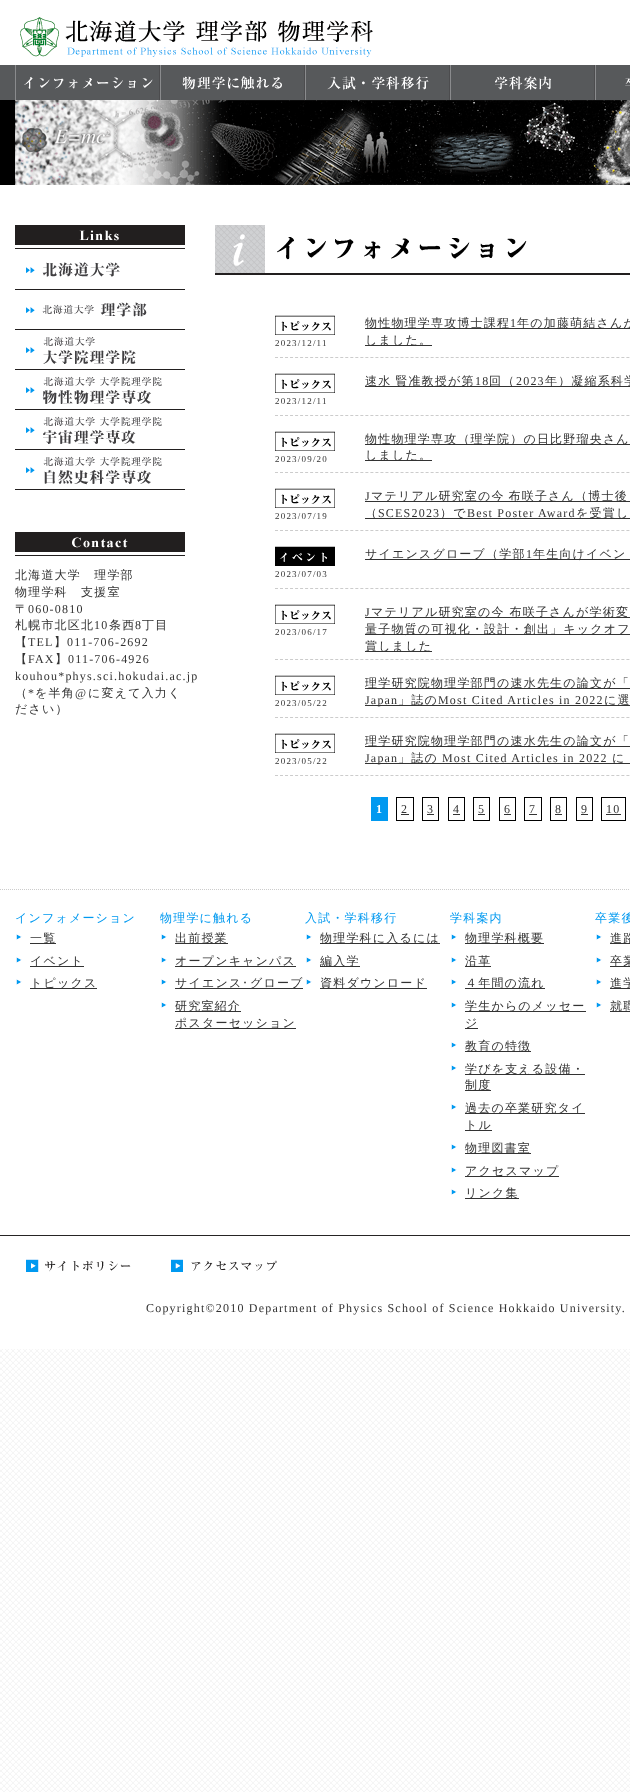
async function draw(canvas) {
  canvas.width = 630;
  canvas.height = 1792;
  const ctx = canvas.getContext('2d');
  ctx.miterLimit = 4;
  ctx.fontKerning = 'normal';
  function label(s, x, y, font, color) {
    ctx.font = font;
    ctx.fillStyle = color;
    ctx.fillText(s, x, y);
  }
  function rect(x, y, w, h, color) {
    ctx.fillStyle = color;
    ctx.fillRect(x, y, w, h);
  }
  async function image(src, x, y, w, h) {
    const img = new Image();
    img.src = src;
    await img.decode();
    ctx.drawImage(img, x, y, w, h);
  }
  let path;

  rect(0, 0, 630, 1792, '#fff');
  await image('assets/img1.png', 0, 1349, 630, 443);
  await image('assets/img2.png', 0, 100, 15, 85);
  await image('assets/img3.png', 20, 17, 353, 40);
  rect(0, 65, 15, 35, '#57595b');
  await image('assets/img4.png', 15, 65, 145, 35);
  await image('assets/img5.png', 160, 65, 145, 35);
  await image('assets/img6.png', 305, 65, 145, 35);
  await image('assets/img7.png', 450, 65, 145, 35);
  await image('assets/img8.png', 595, 65, 35, 35);
  await image('assets/img9.png', 15, 100, 615, 85);
  await image('assets/img10.png', 15, 225, 170, 24);
  await image('assets/img11.png', 15, 262, 170, 28);
  await image('assets/img12.png', 15, 302, 170, 28);
  await image('assets/img13.png', 15, 336, 170, 34);
  await image('assets/img14.png', 15, 376, 170, 34);
  await image('assets/img15.png', 15, 416, 170, 34);
  await image('assets/img16.png', 15, 456, 170, 34);
  await image('assets/img17.png', 15, 532, 170, 24);
  ctx.letterSpacing = '1.2px';
  label('北海道大学　理学部', 15, 579, '500 12px WenQuanYi Zen Hei', '#333');
  label('物理学科　支援室', 15, 596, '500 12px WenQuanYi Zen Hei', '#333');
  label('〒', 15, 613, '500 12px WenQuanYi Zen Hei', '#333');
  label('060-0810', 28, 613, '12px Liberation Serif', '#333');
  label('札幌市北区北', 15, 629, '500 12px WenQuanYi Zen Hei', '#333');
  label('10', 94, 629, '12px Liberation Serif', '#333');
  label('条西', 109, 629, '500 12px WenQuanYi Zen Hei', '#333');
  label('8', 135, 629, '12px Liberation Serif', '#333');
  label('丁目', 142, 629, '500 12px WenQuanYi Zen Hei', '#333');
  label('【', 15, 646, '500 12px WenQuanYi Zen Hei', '#333');
  label('TEL', 28, 646, '12px Liberation Serif', '#333');
  label('】', 54, 646, '500 12px WenQuanYi Zen Hei', '#333');
  label('011-706-2692', 67, 646, '12px Liberation Serif', '#333');
  label('【', 15, 663, '500 12px WenQuanYi Zen Hei', '#333');
  label('FAX', 28, 663, '12px Liberation Serif', '#333');
  label('】', 55, 663, '500 12px WenQuanYi Zen Hei', '#333');
  label('011-706-4926', 68, 663, '12px Liberation Serif', '#333');
  label('kouhou*phys.sci.hokudai.ac.jp', 15, 680, '12px Liberation Serif', '#333');
  label('（', 15, 697, '500 12px WenQuanYi Zen Hei', '#333');
  label('*', 28, 697, '12px Liberation Serif', '#333');
  label('を半角', 35, 697, '500 12px WenQuanYi Zen Hei', '#333');
  label('@', 75, 697, '12px Liberation Serif', '#333');
  label('に変えて入力く', 88, 697, '500 12px WenQuanYi Zen Hei', '#333');
  label('ださい）', 15, 713, '500 12px WenQuanYi Zen Hei', '#333');
  await image('assets/img18.png', 215, 225, 415, 50);
  path = new Path2D('M275 357.5H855');
  ctx.strokeStyle = '#ccc';
  ctx.setLineDash([3, 2.02]);
  ctx.stroke(path);
  await image('assets/img19.png', 275, 315, 60, 20);
  label('2023/12/11', 275, 346, '9px Liberation Serif', '#333');
  rect(365, 328, 265, 1, '#333');
  label('物性物理学専攻博士課程', 365, 327, '500 12px WenQuanYi Zen Hei', '#333');
  label('1', 510, 327, '12px Liberation Serif', '#333');
  label('年の加藤萌結さんが', 517, 327, '500 12px WenQuanYi Zen Hei', '#333');
  rect(365, 345, 67, 1, '#333');
  label('しました。', 365, 344, '500 12px WenQuanYi Zen Hei', '#333');
  path = new Path2D('M275 415.5H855');
  ctx.stroke(path);
  rect(365, 386, 265, 1, '#333');
  ctx.wordSpacing = '-1px';
  label('速水 賢准教授が第', 365, 385, '500 12px WenQuanYi Zen Hei', '#333');
  ctx.wordSpacing = '0px';
  label('18', 475, 385, '12px Liberation Serif', '#333');
  label('回（', 489, 385, '500 12px WenQuanYi Zen Hei', '#333');
  label('2023', 516, 385, '12px Liberation Serif', '#333');
  ctx.wordSpacing = '-1px';
  label('年）凝縮系科学', 545, 385, '500 12px WenQuanYi Zen Hei', '#333');
  await image('assets/img19.png', 275, 373, 60, 20);
  ctx.wordSpacing = '0px';
  label('2023/12/11', 275, 404, '9px Liberation Serif', '#333');
  path = new Path2D('M275 472.5H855');
  ctx.stroke(path);
  await image('assets/img19.png', 275, 431, 60, 20);
  label('2023/09/20', 275, 462, '9px Liberation Serif', '#333');
  rect(365, 444, 265, 1, '#333');
  label('物性物理学専攻（理学院）の日比野瑠央さん', 365, 443, '500 12px WenQuanYi Zen Hei', '#333');
  rect(365, 460, 67, 1, '#333');
  label('しました。', 365, 459, '500 12px WenQuanYi Zen Hei', '#333');
  path = new Path2D('M275 530.5H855');
  ctx.stroke(path);
  await image('assets/img19.png', 275, 488, 60, 20);
  label('2023/07/19', 275, 519, '9px Liberation Serif', '#333');
  label('J', 365, 500, '12px Liberation Serif', '#333');
  rect(365, 501, 265, 1, '#333');
  ctx.wordSpacing = '-1px';
  label('マテリアル研究室の今 布咲子さん（博士後', 371, 500, '500 12px WenQuanYi Zen Hei', '#333');
  rect(365, 518, 265, 1, '#333');
  ctx.wordSpacing = '0px';
  label('（', 365, 517, '500 12px WenQuanYi Zen Hei', '#333');
  label('SCES2023', 378, 517, '12px Liberation Serif', '#333');
  label('）で', 440, 517, '500 12px WenQuanYi Zen Hei', '#333');
  label('Best Poster Award', 467, 517, '12px Liberation Serif', '#333');
  label('を受賞し', 576, 517, '500 12px WenQuanYi Zen Hei', '#333');
  path = new Path2D('M275 588.5H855');
  ctx.stroke(path);
  rect(365, 559, 265, 1, '#333');
  label('サイエンスグローブ（学部', 365, 558, '500 12px WenQuanYi Zen Hei', '#333');
  label('1', 526, 558, '12px Liberation Serif', '#333');
  label('年生向けイベン', 533, 558, '500 12px WenQuanYi Zen Hei', '#333');
  await image('assets/img20.png', 275, 546, 60, 20);
  label('2023/07/03', 275, 577, '9px Liberation Serif', '#333');
  path = new Path2D('M275 659.5H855');
  ctx.stroke(path);
  await image('assets/img19.png', 275, 604, 60, 20);
  label('2023/06/17', 275, 635, '9px Liberation Serif', '#333');
  label('J', 365, 616, '12px Liberation Serif', '#333');
  rect(365, 617, 265, 1, '#333');
  label('マテリアル研究室の今 布咲子さんが学術変', 371, 616, '500 12px WenQuanYi Zen Hei', '#333');
  rect(365, 634, 265, 1, '#333');
  label('量子物質の可視化・設計・創出」キックオフ', 365, 633, '500 12px WenQuanYi Zen Hei', '#333');
  rect(365, 651, 67, 1, '#333');
  label('賞しました', 365, 650, '500 12px WenQuanYi Zen Hei', '#333');
  path = new Path2D('M275 717.5H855');
  ctx.stroke(path);
  await image('assets/img19.png', 275, 675, 60, 20);
  label('2023/05/22', 275, 706, '9px Liberation Serif', '#333');
  rect(365, 688, 265, 1, '#333');
  label('理学研究院物理学部門の速水先生の論文が「', 365, 687, '500 12px WenQuanYi Zen Hei', '#333');
  rect(365, 705, 265, 1, '#333');
  label('Japan', 365, 704, '12px Liberation Serif', '#333');
  label('」誌の', 398, 704, '500 12px WenQuanYi Zen Hei', '#333');
  label('Most Cited Articles in 2022', 438, 704, '12px Liberation Serif', '#333');
  label('に選', 604, 704, '500 12px WenQuanYi Zen Hei', '#333');
  path = new Path2D('M275 775.5H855');
  ctx.stroke(path);
  await image('assets/img19.png', 275, 733, 60, 20);
  label('2023/05/22', 275, 764, '9px Liberation Serif', '#333');
  rect(365, 746, 265, 1, '#333');
  label('理学研究院物理学部門の速水先生の論文が「', 365, 745, '500 12px WenQuanYi Zen Hei', '#333');
  rect(365, 763, 265, 1, '#333');
  label('Japan', 365, 762, '12px Liberation Serif', '#333');
  label('」誌の', 398, 762, '500 12px WenQuanYi Zen Hei', '#333');
  label('Most Cited Articles in 2022', 442, 762, '12px Liberation Serif', '#333');
  label('に', 612, 762, '500 12px WenQuanYi Zen Hei', '#333');
  rect(371, 797, 17, 24, '#0099f0');
  label('1', 376, 813, 'bold 12px Liberation Serif', '#fff');
  ctx.strokeStyle = '#000';
  ctx.setLineDash([]);
  ctx.strokeRect(396.5, 797.5, 17, 23);
  label('2', 401, 813, '12px Liberation Serif', '#333');
  rect(401, 814, 8, 1, '#333');
  ctx.strokeRect(422.5, 797.5, 16, 23);
  label('3', 427, 813, '12px Liberation Serif', '#333');
  rect(427, 814, 7, 1, '#333');
  ctx.strokeRect(448.5, 797.5, 16, 23);
  label('4', 453, 813, '12px Liberation Serif', '#333');
  rect(453, 814, 7, 1, '#333');
  ctx.strokeRect(473.5, 797.5, 16, 23);
  label('5', 478, 813, '12px Liberation Serif', '#333');
  rect(478, 814, 7, 1, '#333');
  ctx.strokeRect(499.5, 797.5, 16, 23);
  label('6', 504, 813, '12px Liberation Serif', '#333');
  rect(504, 814, 7, 1, '#333');
  ctx.strokeRect(524.5, 797.5, 17, 23);
  label('7', 529, 813, '12px Liberation Serif', '#333');
  rect(529, 814, 8, 1, '#333');
  ctx.strokeRect(550.5, 797.5, 16, 23);
  label('8', 555, 813, '12px Liberation Serif', '#333');
  rect(555, 814, 7, 1, '#333');
  ctx.strokeRect(576.5, 797.5, 16, 23);
  label('9', 581, 813, '12px Liberation Serif', '#333');
  rect(581, 814, 7, 1, '#333');
  ctx.strokeRect(601.5, 797.5, 24, 23);
  label('10', 606, 813, '12px Liberation Serif', '#333');
  rect(606, 814, 15, 1, '#333');
  path = new Path2D('M0 889.5H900');
  ctx.strokeStyle = '#ccc';
  ctx.setLineDash([1, 1]);
  ctx.stroke(path);
  label('インフォメーション', 15, 922, '500 12px WenQuanYi Zen Hei', '#0099f0');
  await image('assets/img21.png', 16, 934, 6, 6);
  rect(30, 943, 26, 1, '#333');
  label('一覧', 30, 942, '500 12px WenQuanYi Zen Hei', '#333');
  await image('assets/img21.png', 16, 957, 6, 6);
  rect(30, 966, 54, 1, '#333');
  label('イベント', 30, 965, '500 12px WenQuanYi Zen Hei', '#333');
  await image('assets/img21.png', 16, 979, 6, 6);
  rect(30, 988, 67, 1, '#333');
  label('トピックス', 30, 987, '500 12px WenQuanYi Zen Hei', '#333');
  label('物理学に触れる', 160, 922, '500 12px WenQuanYi Zen Hei', '#0099f0');
  await image('assets/img21.png', 161, 934, 6, 6);
  rect(175, 943, 53, 1, '#333');
  label('出前授業', 175, 942, '500 12px WenQuanYi Zen Hei', '#333');
  await image('assets/img21.png', 161, 957, 6, 6);
  rect(175, 966, 121, 1, '#333');
  label('オープンキャンパス', 175, 965, '500 12px WenQuanYi Zen Hei', '#333');
  await image('assets/img21.png', 161, 979, 6, 6);
  rect(175, 988, 128, 1, '#333');
  label('サイエンス', 175, 987, '500 12px WenQuanYi Zen Hei', '#333');
  label('･', 242, 987, '12px IPAGothic', '#333');
  label('グローブ', 250, 987, '500 12px WenQuanYi Zen Hei', '#333');
  await image('assets/img21.png', 161, 1002, 6, 6);
  rect(175, 1011, 66, 1, '#333');
  label('研究室紹介', 175, 1010, '500 12px WenQuanYi Zen Hei', '#333');
  rect(175, 1028, 121, 1, '#333');
  label('ポスターセッション', 175, 1027, '500 12px WenQuanYi Zen Hei', '#333');
  label('入試・学科移行', 305, 922, '500 12px WenQuanYi Zen Hei', '#0099f0');
  await image('assets/img21.png', 306, 934, 6, 6);
  rect(320, 943, 120, 1, '#333');
  label('物理学科に入るには', 320, 942, '500 12px WenQuanYi Zen Hei', '#333');
  await image('assets/img21.png', 306, 957, 6, 6);
  rect(320, 966, 40, 1, '#333');
  label('編入学', 320, 965, '500 12px WenQuanYi Zen Hei', '#333');
  await image('assets/img21.png', 306, 979, 6, 6);
  rect(320, 988, 107, 1, '#333');
  label('資料ダウンロード', 320, 987, '500 12px WenQuanYi Zen Hei', '#333');
  label('学科案内', 450, 922, '500 12px WenQuanYi Zen Hei', '#0099f0');
  await image('assets/img21.png', 451, 934, 6, 6);
  rect(465, 943, 79, 1, '#333');
  label('物理学科概要', 465, 942, '500 12px WenQuanYi Zen Hei', '#333');
  await image('assets/img21.png', 451, 957, 6, 6);
  rect(465, 966, 26, 1, '#333');
  label('沿革', 465, 965, '500 12px WenQuanYi Zen Hei', '#333');
  await image('assets/img21.png', 451, 979, 6, 6);
  rect(465, 988, 80, 1, '#333');
  label('４年間の流れ', 465, 987, '500 12px WenQuanYi Zen Hei', '#333');
  await image('assets/img21.png', 451, 1002, 6, 6);
  rect(465, 1011, 121, 1, '#333');
  label('学生からのメッセー', 465, 1010, '500 12px WenQuanYi Zen Hei', '#333');
  rect(465, 1028, 13, 1, '#333');
  label('ジ', 465, 1027, '500 12px WenQuanYi Zen Hei', '#333');
  await image('assets/img21.png', 451, 1042, 6, 6);
  rect(465, 1051, 66, 1, '#333');
  label('教育の特徴', 465, 1050, '500 12px WenQuanYi Zen Hei', '#333');
  await image('assets/img21.png', 451, 1065, 6, 6);
  rect(465, 1074, 120, 1, '#333');
  label('学びを支える設備・', 465, 1073, '500 12px WenQuanYi Zen Hei', '#333');
  rect(465, 1090, 26, 1, '#333');
  label('制度', 465, 1089, '500 12px WenQuanYi Zen Hei', '#333');
  await image('assets/img21.png', 451, 1104, 6, 6);
  rect(465, 1113, 120, 1, '#333');
  label('過去の卒業研究タイ', 465, 1112, '500 12px WenQuanYi Zen Hei', '#333');
  rect(465, 1130, 27, 1, '#333');
  label('トル', 465, 1129, '500 12px WenQuanYi Zen Hei', '#333');
  await image('assets/img21.png', 451, 1144, 6, 6);
  rect(465, 1153, 66, 1, '#333');
  label('物理図書室', 465, 1152, '500 12px WenQuanYi Zen Hei', '#333');
  await image('assets/img21.png', 451, 1167, 6, 6);
  rect(465, 1176, 94, 1, '#333');
  label('アクセスマップ', 465, 1175, '500 12px WenQuanYi Zen Hei', '#333');
  await image('assets/img21.png', 451, 1189, 6, 6);
  rect(465, 1198, 54, 1, '#333');
  label('リンク集', 465, 1197, '500 12px WenQuanYi Zen Hei', '#333');
  label('卒業後', 595, 922, '500 12px WenQuanYi Zen Hei', '#0099f0');
  await image('assets/img21.png', 596, 934, 6, 6);
  rect(610, 943, 20, 1, '#333');
  label('進路', 610, 942, '500 12px WenQuanYi Zen Hei', '#333');
  await image('assets/img21.png', 596, 957, 6, 6);
  rect(610, 966, 20, 1, '#333');
  label('卒業', 610, 965, '500 12px WenQuanYi Zen Hei', '#333');
  await image('assets/img21.png', 596, 979, 6, 6);
  rect(610, 988, 20, 1, '#333');
  label('進学', 610, 987, '500 12px WenQuanYi Zen Hei', '#333');
  await image('assets/img21.png', 596, 1002, 6, 6);
  rect(610, 1011, 20, 1, '#333');
  label('就職', 610, 1010, '500 12px WenQuanYi Zen Hei', '#333');
  rect(0, 1235, 630, 1, '#262424');
  await image('assets/img22.png', 26, 1259, 105, 13);
  await image('assets/img23.png', 171, 1259, 106, 13);
  label('Copyright©2010 Department of Physics School of Science Hokkaido University.', 146, 1312, '12px Liberation Serif', '#333');
}

draw(document.querySelector('canvas'));
